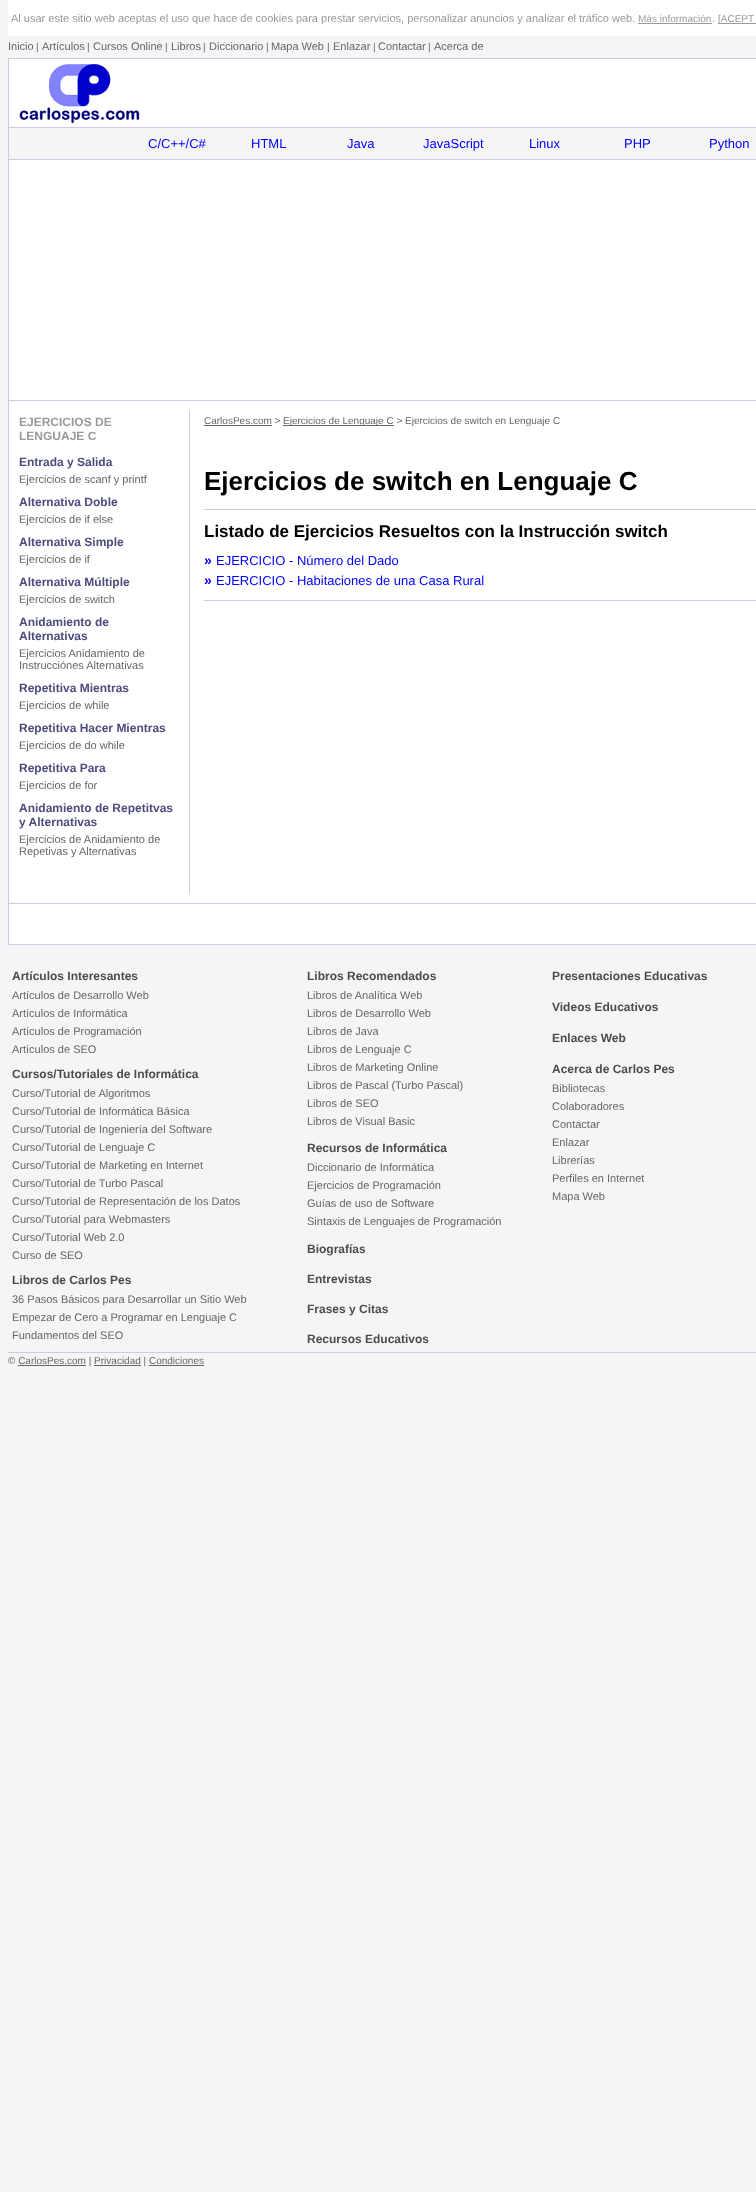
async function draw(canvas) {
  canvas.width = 756;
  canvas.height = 2192;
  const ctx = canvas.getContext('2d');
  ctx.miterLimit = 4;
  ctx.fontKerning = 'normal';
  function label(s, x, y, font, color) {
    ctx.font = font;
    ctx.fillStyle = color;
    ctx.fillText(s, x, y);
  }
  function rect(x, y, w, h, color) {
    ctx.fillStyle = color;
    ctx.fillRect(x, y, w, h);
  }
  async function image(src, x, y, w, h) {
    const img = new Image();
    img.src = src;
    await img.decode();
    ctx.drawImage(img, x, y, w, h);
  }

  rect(0, 0, 756, 2192, '#f5f5f5');
  rect(8, 0, 748, 36, '#fff');
  label('Al usar este sitio web aceptas el uso que hace de cookies para prestar servicios, personalizar anuncios y analizar el tráfico web.', 11, 22, '11px Liberation Sans', '#999');
  label('Más información', 638, 22, '10px Liberation Sans', '#999');
  label('.', 712, 22, '11px Liberation Sans', '#999');
  rect(638, 23, 74, 1, '#999');
  rect(718, 23, 38, 1, '#999');
  label('[ACEPT', 718, 22, '10px Liberation Sans', '#999');
  label('Inicio', 8, 50, '11px Liberation Sans', '#666');
  label('|', 36, 50, '10px Liberation Sans', '#666');
  label('Artículos', 42, 50, '11px Liberation Sans', '#666');
  label('|', 87, 50, '10px Liberation Sans', '#666');
  label('Cursos Online', 93, 50, '11px Liberation Sans', '#666');
  label('|', 165, 50, '10px Liberation Sans', '#666');
  label('Libros', 171, 50, '11px Liberation Sans', '#666');
  label('|', 203, 50, '10px Liberation Sans', '#666');
  label('Diccionario', 209, 50, '11px Liberation Sans', '#666');
  label('|', 266, 50, '10px Liberation Sans', '#666');
  label('Mapa Web', 271, 50, '11px Liberation Sans', '#666');
  label('|', 327, 50, '10px Liberation Sans', '#666');
  label('Enlazar', 333, 50, '11px Liberation Sans', '#666');
  label('|', 373, 50, '10px Liberation Sans', '#666');
  label('Contactar', 378, 50, '11px Liberation Sans', '#666');
  label('|', 428, 50, '10px Liberation Sans', '#666');
  label('Acerca de', 434, 50, '11px Liberation Sans', '#666');
  rect(8, 58, 748, 887, '#cccce1');
  rect(9, 59, 747, 885, '#fff');
  await image('assets/img1.png', 19, 64, 121, 60);
  rect(9, 127, 747, 1, '#cccce1');
  rect(9, 128, 747, 31, '#f5f5f5');
  label('C/C++/C#', 148, 148, '13px Liberation Sans', '#00f');
  label('HTML', 251, 148, '13px Liberation Sans', '#00f');
  label('Java', 347, 148, '13px Liberation Sans', '#00f');
  label('JavaScript', 423, 148, '13px Liberation Sans', '#00f');
  label('Linux', 529, 148, '13px Liberation Sans', '#00f');
  label('PHP', 624, 148, '13px Liberation Sans', '#00f');
  label('Python', 709, 148, '13px Liberation Sans', '#00f');
  rect(9, 159, 747, 1, '#cccce1');
  rect(9, 400, 747, 1, '#cccce1');
  label('EJERCICIOS DE', 19, 426, 'bold 12px Liberation Sans', '#999');
  label('LENGUAJE C', 19, 440, 'bold 12px Liberation Sans', '#999');
  label('Entrada y Salida', 19, 466, 'bold 12px Liberation Sans', '#4c4c7e');
  label('Ejercicios de scanf y printf', 19, 483, '11px Liberation Sans', '#666');
  label('Alternativa Doble', 19, 506, 'bold 12px Liberation Sans', '#4c4c7e');
  label('Ejercicios de if else', 19, 523, '11px Liberation Sans', '#666');
  label('Alternativa Simple', 19, 546, 'bold 12px Liberation Sans', '#4c4c7e');
  label('Ejercicios de if', 19, 563, '11px Liberation Sans', '#666');
  label('Alternativa Múltiple', 19, 586, 'bold 12px Liberation Sans', '#4c4c7e');
  label('Ejercicios de switch', 19, 603, '11px Liberation Sans', '#666');
  label('Anidamiento de', 19, 626, 'bold 12px Liberation Sans', '#4c4c7e');
  label('Alternativas', 19, 640, 'bold 12px Liberation Sans', '#4c4c7e');
  label('Ejercicios Anidamiento de', 19, 657, '11px Liberation Sans', '#666');
  label('Instrucciónes Alternativas', 19, 669, '11px Liberation Sans', '#666');
  label('Repetitiva Mientras', 19, 692, 'bold 12px Liberation Sans', '#4c4c7e');
  label('Ejercicios de while', 19, 709, '11px Liberation Sans', '#666');
  label('Repetitiva Hacer Mientras', 19, 732, 'bold 12px Liberation Sans', '#4c4c7e');
  label('Ejercicios de do while', 19, 749, '11px Liberation Sans', '#666');
  label('Repetitiva Para', 19, 772, 'bold 12px Liberation Sans', '#4c4c7e');
  label('Ejercicios de for', 19, 789, '11px Liberation Sans', '#666');
  label('Anidamiento de Repetitvas', 19, 812, 'bold 12px Liberation Sans', '#4c4c7e');
  label('y Alternativas', 19, 826, 'bold 12px Liberation Sans', '#4c4c7e');
  label('Ejercicios de Anidamiento de', 19, 843, '11px Liberation Sans', '#666');
  label('Repetivas y Alternativas', 19, 855, '11px Liberation Sans', '#666');
  rect(189, 411, 1, 482, '#cccce1');
  label('CarlosPes.com >', 204, 424, '10px Liberation Sans', '#666');
  rect(204, 425, 68, 1, '#666');
  rect(283, 425, 111, 1, '#666');
  label('Ejercicios de Lenguaje C > Ejercicios de switch en Lenguaje C', 283, 424, '10px Liberation Sans', '#666');
  label('Ejercicios de switch en Lenguaje C', 204, 490, 'bold 26px Liberation Sans', '#000');
  rect(204, 509, 552, 1, '#cccce1');
  label('Listado de Ejercicios Resueltos con la Instrucción switch', 204, 537, 'bold 17px Liberation Sans', '#000');
  label('»', 204, 565, 'bold 14px Liberation Sans', '#00f');
  label('EJERCICIO - Número del Dado', 216, 565, '13px Liberation Sans', '#00f');
  label('»', 204, 585, 'bold 14px Liberation Sans', '#00f');
  label('EJERCICIO - Habitaciones de una Casa Rural', 216, 585, '13px Liberation Sans', '#00f');
  rect(204, 600, 552, 1, '#cccce1');
  rect(9, 903, 747, 1, '#cccce1');
  label('Artículos Interesantes', 12, 980, 'bold 12px Liberation Sans', '#4c4c4c');
  label('Artículos de Desarrollo Web', 12, 999, '11px Liberation Sans', '#666');
  label('Artículos de Informática', 12, 1017, '11px Liberation Sans', '#666');
  label('Artículos de Programación', 12, 1035, '11px Liberation Sans', '#666');
  label('Artículos de SEO', 12, 1053, '11px Liberation Sans', '#666');
  label('Cursos/Tutoriales de Informática', 12, 1078, 'bold 12px Liberation Sans', '#4c4c4c');
  label('Curso/Tutorial de Algoritmos', 12, 1097, '11px Liberation Sans', '#666');
  label('Curso/Tutorial de Informática Básica', 12, 1115, '11px Liberation Sans', '#666');
  label('Curso/Tutorial de Ingeniería del Software', 12, 1133, '11px Liberation Sans', '#666');
  label('Curso/Tutorial de Lenguaje C', 12, 1151, '11px Liberation Sans', '#666');
  label('Curso/Tutorial de Marketing en Internet', 12, 1169, '11px Liberation Sans', '#666');
  label('Curso/Tutorial de Turbo Pascal', 12, 1187, '11px Liberation Sans', '#666');
  label('Curso/Tutorial de Representación de los Datos', 12, 1205, '11px Liberation Sans', '#666');
  label('Curso/Tutorial para Webmasters', 12, 1223, '11px Liberation Sans', '#666');
  label('Curso/Tutorial Web 2.0', 12, 1241, '11px Liberation Sans', '#666');
  label('Curso de SEO', 12, 1259, '11px Liberation Sans', '#666');
  label('Libros de Carlos Pes', 12, 1284, 'bold 12px Liberation Sans', '#4c4c4c');
  label('36 Pasos Básicos para Desarrollar un Sitio Web', 12, 1303, '11px Liberation Sans', '#666');
  label('Empezar de Cero a Programar en Lenguaje C', 12, 1321, '11px Liberation Sans', '#666');
  label('Fundamentos del SEO', 12, 1339, '11px Liberation Sans', '#666');
  label('Libros Recomendados', 307, 980, 'bold 12px Liberation Sans', '#4c4c4c');
  label('Libros de Analítica Web', 307, 999, '11px Liberation Sans', '#666');
  label('Libros de Desarrollo Web', 307, 1017, '11px Liberation Sans', '#666');
  label('Libros de Java', 307, 1035, '11px Liberation Sans', '#666');
  label('Libros de Lenguaje C', 307, 1053, '11px Liberation Sans', '#666');
  label('Libros de Marketing Online', 307, 1071, '11px Liberation Sans', '#666');
  label('Libros de Pascal (Turbo Pascal)', 307, 1089, '11px Liberation Sans', '#666');
  label('Libros de SEO', 307, 1107, '11px Liberation Sans', '#666');
  label('Libros de Visual Basic', 307, 1125, '11px Liberation Sans', '#666');
  label('Recursos de Informática', 307, 1152, 'bold 12px Liberation Sans', '#4c4c4c');
  label('Diccionario de Informática', 307, 1171, '11px Liberation Sans', '#666');
  label('Ejercicios de Programación', 307, 1189, '11px Liberation Sans', '#666');
  label('Guías de uso de Software', 307, 1207, '11px Liberation Sans', '#666');
  label('Sintaxis de Lenguajes de Programación', 307, 1225, '11px Liberation Sans', '#666');
  label('Biografías', 307, 1253, 'bold 12px Liberation Sans', '#4c4c4c');
  label('Entrevistas', 307, 1283, 'bold 12px Liberation Sans', '#4c4c4c');
  label('Frases y Citas', 307, 1313, 'bold 12px Liberation Sans', '#4c4c4c');
  label('Recursos Educativos', 307, 1343, 'bold 12px Liberation Sans', '#4c4c4c');
  label('Presentaciones Educativas', 552, 980, 'bold 12px Liberation Sans', '#4c4c4c');
  label('Videos Educativos', 552, 1011, 'bold 12px Liberation Sans', '#4c4c4c');
  label('Enlaces Web', 552, 1042, 'bold 12px Liberation Sans', '#4c4c4c');
  label('Acerca de Carlos Pes', 552, 1073, 'bold 12px Liberation Sans', '#4c4c4c');
  label('Bibliotecas', 552, 1092, '11px Liberation Sans', '#666');
  label('Colaboradores', 552, 1110, '11px Liberation Sans', '#666');
  label('Contactar', 552, 1128, '11px Liberation Sans', '#666');
  label('Enlazar', 552, 1146, '11px Liberation Sans', '#666');
  label('Librerías', 552, 1164, '11px Liberation Sans', '#666');
  label('Perfiles en Internet', 552, 1182, '11px Liberation Sans', '#666');
  label('Mapa Web', 552, 1200, '11px Liberation Sans', '#666');
  rect(8, 1352, 748, 1, '#cccce1');
  label('© CarlosPes.com | Privacidad | Condiciones', 8, 1364, '10px Liberation Sans', '#666');
  rect(18, 1365, 68, 1, '#666');
  rect(94, 1365, 47, 1, '#666');
  rect(149, 1365, 55, 1, '#666');
}

draw(document.querySelector('canvas'));
